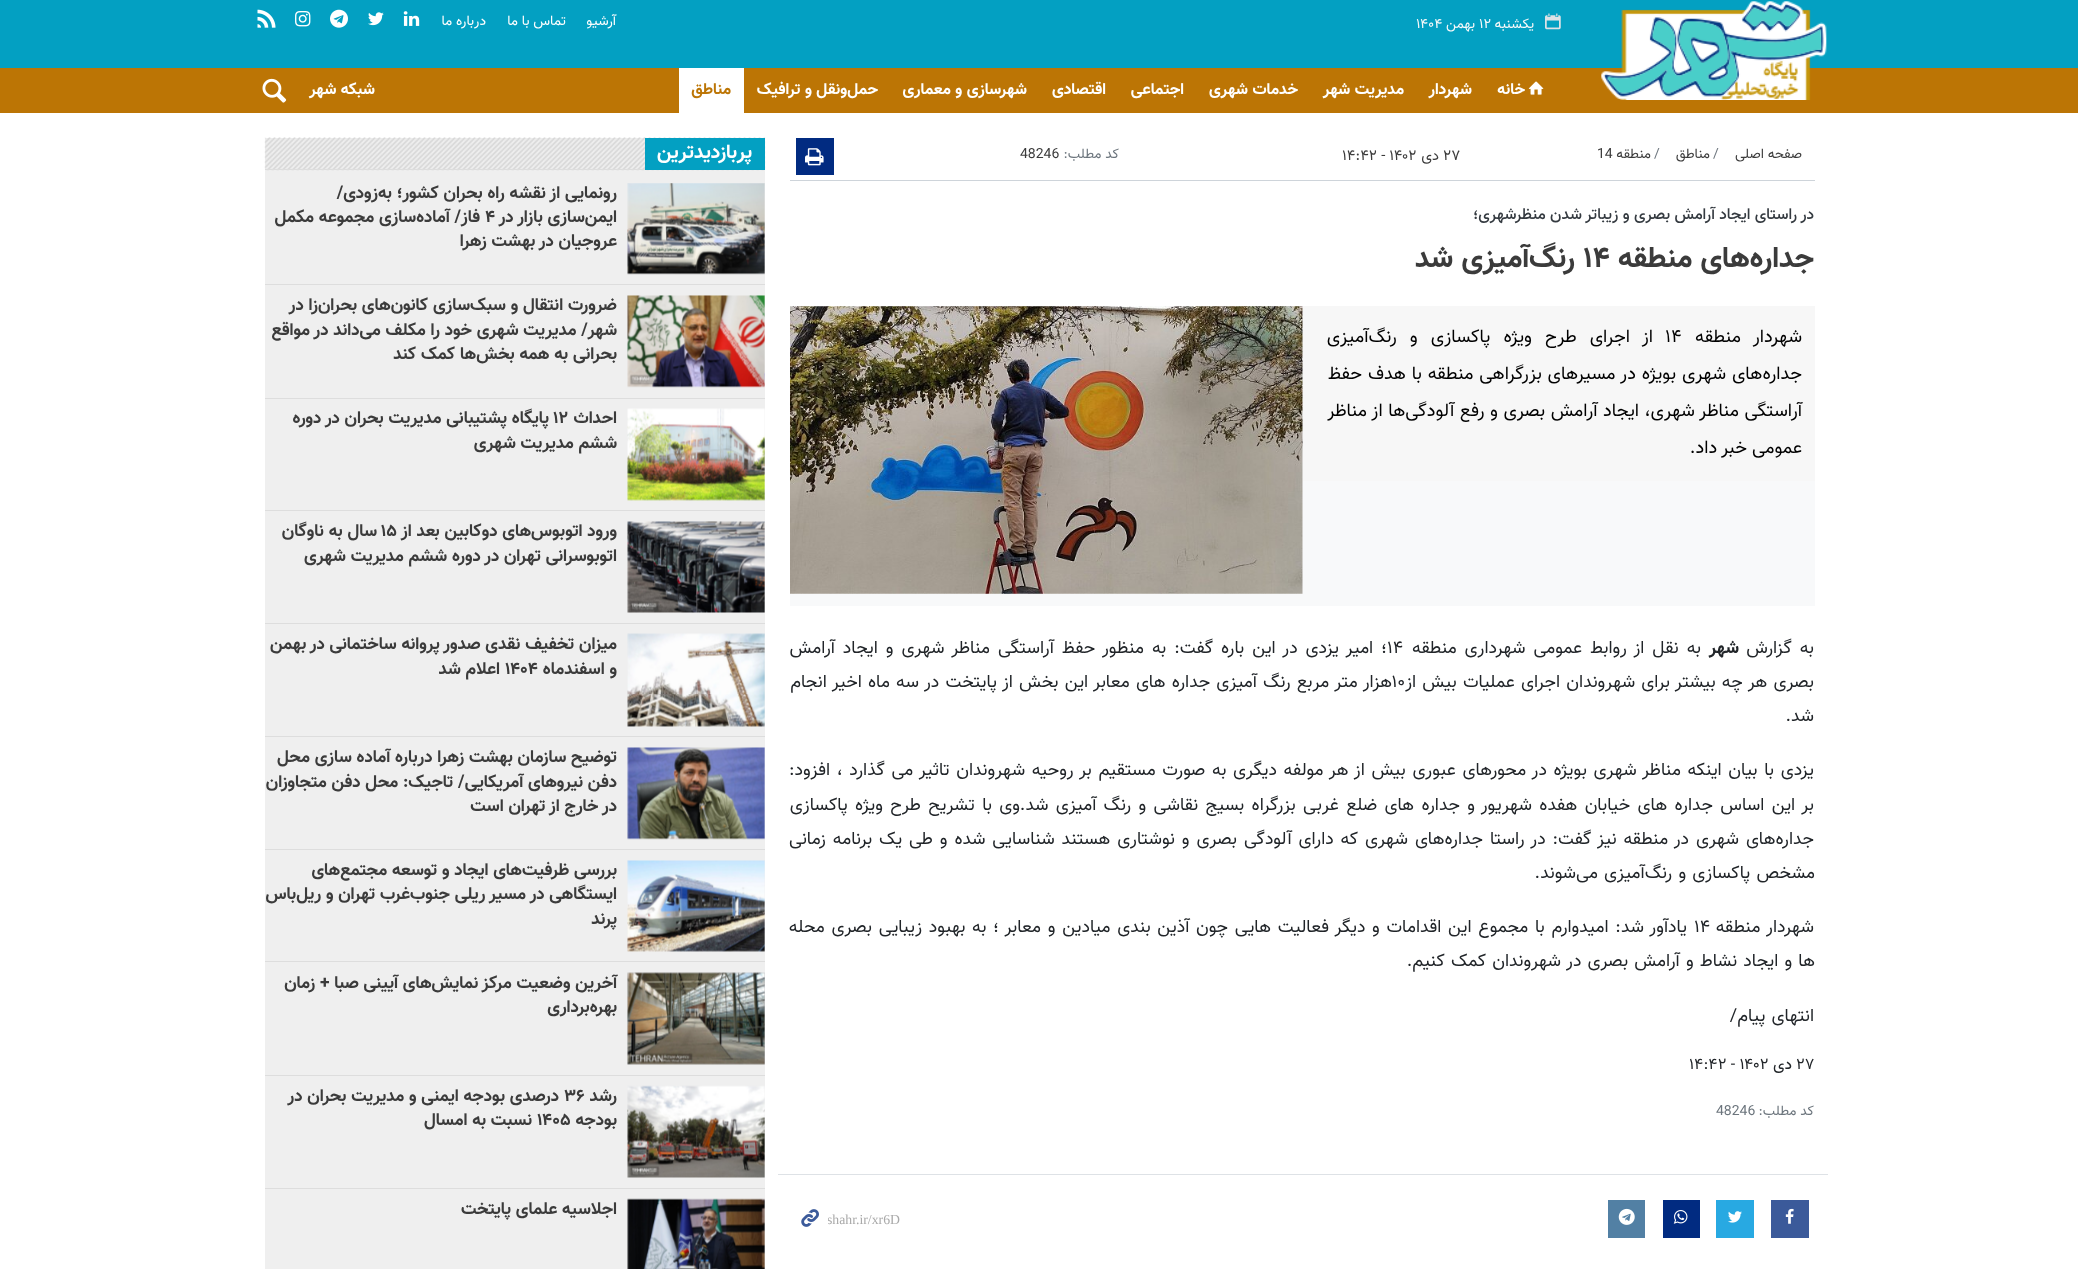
async function draw(canvas) {
  canvas.width = 2078;
  canvas.height = 1269;
  const ctx = canvas.getContext('2d');
  ctx.miterLimit = 4;
  ctx.fontKerning = 'normal';
  function label(s, x, y, font, color) {
    ctx.font = font;
    ctx.fillStyle = color;
    ctx.fillText(s, x, y);
  }
  function rect(x, y, w, h, color) {
    ctx.fillStyle = color;
    ctx.fillRect(x, y, w, h);
  }
  async function image(src, x, y, w, h) {
    const img = new Image();
    img.src = src;
    await img.decode();
    ctx.drawImage(img, x, y, w, h);
  }

  rect(0, 0, 2078, 1269, '#fff');
  rect(0, 0, 2078, 68, '#03a0c2');
  rect(0, 68, 2078, 45, '#bc7505');
  await image('assets/img1.png', 1601, 1, 226, 99);
  await image('assets/img2.png', 1545, 13, 16, 17);
  ctx.direction = 'rtl';
  label('یکشنبه', 1534, 28, '14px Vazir', '#f8f9fa');
  ctx.direction = 'ltr';
  label('۱۲', 1479, 28, '14px Vazir', '#f8f9fa');
  ctx.direction = 'rtl';
  label('بهمن', 1475, 28, '14px Vazir', '#f8f9fa');
  ctx.direction = 'ltr';
  label('۱۴۰۴', 1416, 28, '14px Vazir', '#f8f9fa');
  ctx.direction = 'rtl';
  label('آرشيو', 616, 25, '14px Vazir', '#fff');
  label('تماس با ما', 566, 25, '14px Vazir', '#fff');
  label('درباره ما', 486, 25, '14px Vazir', '#fff');
  await image('assets/img3.png', 403, 11, 17, 15);
  await image('assets/img4.png', 368, 12, 16, 14);
  await image('assets/img5.png', 330, 9, 18, 19);
  await image('assets/img6.png', 295, 11, 16, 16);
  await image('assets/img7.png', 257, 9, 19, 19);
  await image('assets/img8.png', 1528, 81, 16, 14);
  label('خانه', 1525, 94, 'bold 16.25px Vazir', '#fff');
  label('شهردار', 1472, 94, 'bold 16.25px Vazir', '#fff');
  label('مدیریت شهر', 1404, 94, 'bold 16.25px Vazir', '#fff');
  label('خدمات شهری', 1298, 94, 'bold 16.25px Vazir', '#fff');
  label('اجتماعی', 1184, 94, 'bold 16.25px Vazir', '#fff');
  label('اقتصادی', 1106, 94, 'bold 16.25px Vazir', '#fff');
  label('شهرسازی و معماری', 1027, 94, 'bold 16.25px Vazir', '#fff');
  label('حمل‌ونقل و ترافیک', 878, 94, 'bold 16.25px Vazir', '#fff');
  rect(679, 68, 65, 45, '#fff');
  label('مناطق', 731, 94, 'bold 16.25px Vazir', '#bc7505');
  label('شبکه شهر', 375, 94, 'bold 16.25px Vazir', '#fff');
  await image('assets/img9.png', 262, 78, 25, 25);
  label('صفحه اصلی', 1802, 158, '14px Vazir', '#3b3b3b');
  ctx.direction = 'ltr';
  label('/', 1713, 158, '14px Vazir', '#6c757d');
  ctx.direction = 'rtl';
  label('مناطق', 1710, 158, '14px Vazir', '#3b3b3b');
  ctx.direction = 'ltr';
  label('/', 1654, 158, '14px Vazir', '#6c757d');
  ctx.direction = 'rtl';
  label('منطقه', 1651, 158, '14px Vazir', '#3b3b3b');
  ctx.direction = 'ltr';
  label('14', 1597, 158, '14px Vazir', '#3b3b3b');
  label('۲۷', 1443, 160, '15px Vazir', '#3b3b3b');
  ctx.direction = 'rtl';
  label('دی', 1439, 160, '15px Vazir', '#3b3b3b');
  ctx.direction = 'ltr';
  label('۱۴:۴۲ - ۱۴۰۲', 1342, 160, '15px Vazir', '#3b3b3b');
  ctx.direction = 'rtl';
  label('کد مطلب:', 1119, 158, '14px Vazir', '#6c757d');
  ctx.direction = 'ltr';
  label('48246', 1020, 158, '14px Vazir', '#3b3b3b');
  rect(796, 138, 38, 37, '#012b81');
  await image('assets/img10.png', 805, 148, 19, 18);
  rect(790, 180, 1025, 1, '#ced4da');
  ctx.direction = 'rtl';
  label('در راستای ایجاد آرامش بصری و زیباتر شدن منظرشهری؛', 1814, 219, '500 16px Vazir', '#343a40');
  label('جداره‌های منطقه', 1814, 267, 'bold 30px Vazir', '#3b3b3b');
  ctx.direction = 'ltr';
  label('۱۴', 1583, 267, 'bold 30px Vazir', '#3b3b3b');
  ctx.direction = 'rtl';
  label('رنگ‌آمیزی شد', 1575, 267, 'bold 30px Vazir', '#3b3b3b');
  rect(790, 306, 1025, 300, '#f8f9fa');
  rect(1303, 306, 512, 175, '#f7f7f7');
  ctx.wordSpacing = '8px';
  label('شهردار منطقه', 1802, 342, '18.5px Vazir', '#000');
  ctx.wordSpacing = '0px';
  ctx.direction = 'ltr';
  label('۱۴', 1665, 342, '18.5px Vazir', '#000');
  ctx.wordSpacing = '8px';
  ctx.direction = 'rtl';
  label('از اجرای طرح ویژه پاکسازی و رنگ‌آمیزی', 1653, 342, '18.5px Vazir', '#000');
  ctx.wordSpacing = '0.75px';
  label('جداره‌های شهری بویژه در مسیرهای بزرگراهی منطقه با هدف حفظ', 1802, 379, '18.5px Vazir', '#000');
  ctx.wordSpacing = '0.5px';
  label('آراستگی مناظر شهری، ایجاد آرامش بصری و رفع آلودگی‌ها از مناظر', 1802, 416, '18.5px Vazir', '#000');
  ctx.wordSpacing = '0px';
  label('عمومی خبر داد.', 1802, 453, '18.5px Vazir', '#000');
  await image('assets/img11.png', 790, 306, 513, 288);
  ctx.wordSpacing = '3px';
  label('به گزارش', 1814, 653, '18px Vazir', '#212529');
  ctx.wordSpacing = '0px';
  label('شهر', 1739, 653, 'bold 18px Vazir', '#212529');
  ctx.wordSpacing = '3px';
  label('به نقل از روابط عمومی شهرداری منطقه', 1701, 653, '18px Vazir', '#212529');
  ctx.wordSpacing = '0px';
  ctx.direction = 'ltr';
  label('۱۴', 1387, 653, '18px Vazir', '#212529');
  ctx.wordSpacing = '3px';
  ctx.direction = 'rtl';
  label('؛ امیر یزدی در این باره گفت: به منظور حفظ آراستگی مناظر شهری و ایجاد آرامش', 1387, 653, '18px Vazir', '#212529');
  ctx.wordSpacing = '1.25px';
  label('بصری هر چه بیشتر برای شهروندان اجرای عملیات بیش از', 1814, 687, '18px Vazir', '#212529');
  ctx.wordSpacing = '0px';
  ctx.direction = 'ltr';
  label('۱۰', 1392, 687, '18px Vazir', '#212529');
  ctx.wordSpacing = '1.25px';
  ctx.direction = 'rtl';
  label('هزار متر مربع رنگ آمیزی جداره های معابر این بخش از پایتخت در سه ماه اخیر انجام', 1392, 687, '18px Vazir', '#212529');
  ctx.wordSpacing = '0px';
  label('شد.', 1814, 721, '18px Vazir', '#212529');
  ctx.wordSpacing = '1.7px';
  label('یزدی با بیان اینکه مناظر شهری بویژه در محورهای عبوری بیش از هر مولفه دیگری به صورت مستقیم بر روحیه شهروندان تاثیر می گذارد ، افزود:', 1814, 775, '18px Vazir', '#212529');
  ctx.wordSpacing = '2.4px';
  label('بر این اساس جداره های خیابان هفده شهریور', 1814, 810, '18px Vazir', '#212529');
  label('و جداره های ضلع غربی بزرگراه بسیج نقاشی و رنگ آمیزی شد.', 1475, 810, '18px Vazir', '#212529');
  label('وی با تشریح طرح ویژه پاکسازی', 1020, 810, '18px Vazir', '#212529');
  ctx.wordSpacing = '1.95px';
  label('جداره‌های شهری در منطقه نیز گفت: در راستا جداره‌های شهری که دارای آلودگی بصری و نوشتاری هستند شناسایی شده و طی یک برنامه زمانی', 1814, 844, '18px Vazir', '#212529');
  ctx.wordSpacing = '1.25px';
  label('مشخص پاکسازی و رنگ‌آمیزی می‌شوند.', 1815, 878, '18px Vazir', '#212529');
  ctx.wordSpacing = '2px';
  label('شهردار منطقه', 1814, 932, '18px Vazir', '#212529');
  ctx.wordSpacing = '0px';
  ctx.direction = 'ltr';
  label('۱۴', 1694, 932, '18px Vazir', '#212529');
  ctx.wordSpacing = '1.75px';
  ctx.direction = 'rtl';
  label('یادآور شد: امیدوارم با مجموع این اقدامات و دیگر فعالیت هایی چون آذین بندی میادین و معابر ؛ به بهبود زیبایی بصری محله', 1687, 932, '18px Vazir', '#212529');
  ctx.wordSpacing = '1.25px';
  label('ها و ایجاد نشاط و آرامش بصری در شهروندان کمک کنیم.', 1815, 966, '18px Vazir', '#212529');
  label('انتهای پیام/', 1814, 1021, '18px Vazir', '#212529');
  ctx.wordSpacing = '0px';
  ctx.direction = 'ltr';
  label('۲۷', 1796, 1069, '16px Vazir', '#212529');
  ctx.direction = 'rtl';
  label('دی', 1792, 1069, '16px Vazir', '#212529');
  ctx.direction = 'ltr';
  label('۱۴:۴۲ - ۱۴۰۲', 1689, 1069, '16px Vazir', '#212529');
  ctx.direction = 'rtl';
  label('کد مطلب:', 1814, 1115, '14px Vazir', '#6c757d');
  ctx.direction = 'ltr';
  label('48246', 1716, 1115, '14px Vazir', '#6c757d');
  rect(778, 1174, 1050, 1, '#dee2e6');
  rect(1771, 1200, 38, 38, '#3b5a9a');
  await image('assets/img12.png', 1785, 1208, 9, 16);
  rect(1716, 1200, 38, 38, '#28a9e2');
  await image('assets/img13.png', 1728, 1211, 14, 12);
  rect(1663, 1200, 37, 38, '#012b81');
  await image('assets/img14.png', 1673, 1210, 15, 14);
  rect(1608, 1200, 37, 38, '#5280a4');
  await image('assets/img15.png', 1618, 1208, 17, 17);
  ctx.save();
  ctx.beginPath();
  ctx.rect(828, 1211, 272, 15);
  ctx.clip();
  label('shahr.ir/xr6D', 827, 1224, '13.75px Liberation Serif', '#a9a9a9');
  ctx.restore();
  await image('assets/img16.png', 801, 1209, 18, 18);
  rect(265, 138, 500, 1131, '#efefef');
  await image('assets/img17.png', 264, 137, 502, 34);
  rect(265, 169, 380, 1, '#ddd');
  rect(645, 138, 120, 32, '#03a0c2');
  ctx.direction = 'rtl';
  label('پربازدیدترین', 752, 158, 'bold 20px Vazir', '#fff');
  await image('assets/img18.png', 627, 183, 138, 92);
  label('رونمایی از نقشه راه بحران کشور؛ به‌زودی/', 617, 198, 'bold 17.5px Vazir', '#3b3b3b');
  label('ایمن‌سازی بازار در', 617, 222, 'bold 17.5px Vazir', '#3b3b3b');
  ctx.direction = 'ltr';
  label('۴', 485, 222, 'bold 17.5px Vazir', '#3b3b3b');
  ctx.direction = 'rtl';
  label('فاز/ آماده‌سازی مجموعه مکمل', 480, 222, 'bold 17.5px Vazir', '#3b3b3b');
  label('عروجیان در بهشت زهرا', 617, 246, 'bold 17.5px Vazir', '#3b3b3b');
  rect(265, 284, 500, 1, '#ddd');
  await image('assets/img19.png', 627, 295, 138, 93);
  label('ضرورت انتقال و سبک‌سازی کانون‌های بحران‌زا در', 617, 310, 'bold 17.5px Vazir', '#3b3b3b');
  label('شهر/ مدیریت شهری خود را مکلف می‌داند در مواقع', 617, 335, 'bold 17.5px Vazir', '#3b3b3b');
  label('بحرانی به همه بخش‌ها کمک کند', 617, 359, 'bold 17.5px Vazir', '#3b3b3b');
  rect(265, 398, 500, 1, '#ddd');
  await image('assets/img20.png', 627, 408, 138, 93);
  label('احداث', 617, 423, 'bold 17.5px Vazir', '#3b3b3b');
  ctx.direction = 'ltr';
  label('۱۲', 553, 423, 'bold 17.5px Vazir', '#3b3b3b');
  ctx.direction = 'rtl';
  label('پایگاه پشتیبانی مدیریت بحران در دوره', 549, 423, 'bold 17.5px Vazir', '#3b3b3b');
  label('ششم مدیریت شهری', 617, 448, 'bold 17.5px Vazir', '#3b3b3b');
  rect(265, 510, 500, 1, '#ddd');
  await image('assets/img21.png', 627, 521, 138, 92);
  label('ورود اتوبوس‌های دوکابین بعد از', 617, 536, 'bold 17.5px Vazir', '#3b3b3b');
  ctx.direction = 'ltr';
  label('۱۵', 381, 536, 'bold 17.5px Vazir', '#3b3b3b');
  ctx.direction = 'rtl';
  label('سال به ناوگان', 377, 536, 'bold 17.5px Vazir', '#3b3b3b');
  label('اتوبوسرانی تهران در دوره ششم مدیریت شهری', 617, 561, 'bold 17.5px Vazir', '#3b3b3b');
  rect(265, 623, 500, 1, '#ddd');
  await image('assets/img22.png', 627, 633, 138, 94);
  label('میزان تخفیف نقدی صدور پروانه ساختمانی در بهمن', 617, 649, 'bold 17.5px Vazir', '#3b3b3b');
  label('و اسفندماه', 617, 674, 'bold 17.5px Vazir', '#3b3b3b');
  ctx.direction = 'ltr';
  label('۱۴۰۴', 505, 674, 'bold 17.5px Vazir', '#3b3b3b');
  ctx.direction = 'rtl';
  label('اعلام شد', 500, 674, 'bold 17.5px Vazir', '#3b3b3b');
  rect(265, 736, 500, 1, '#ddd');
  await image('assets/img23.png', 627, 747, 138, 93);
  label('توضیح سازمان بهشت زهرا درباره آماده سازی محل', 617, 762, 'bold 17.5px Vazir', '#3b3b3b');
  label('دفن نیروهای آمریکایی/ تاجیک: محل دفن متجاوزان', 617, 787, 'bold 17.5px Vazir', '#3b3b3b');
  label('در خارج از تهران است', 617, 811, 'bold 17.5px Vazir', '#3b3b3b');
  rect(265, 849, 500, 1, '#ddd');
  await image('assets/img24.png', 627, 860, 138, 92);
  label('بررسی ظرفیت‌های ایجاد و توسعه مجتمع‌های', 617, 875, 'bold 17.5px Vazir', '#3b3b3b');
  label('ایستگاهی در مسیر ریلی جنوب‌غرب تهران و ریل‌باس', 617, 899, 'bold 17.5px Vazir', '#3b3b3b');
  label('پرند', 617, 924, 'bold 17.5px Vazir', '#3b3b3b');
  rect(265, 961, 500, 1, '#ddd');
  await image('assets/img25.png', 627, 972, 138, 93);
  label('آخرین وضعیت مرکز نمایش‌های آیینی صبا + زمان', 617, 988, 'bold 17.5px Vazir', '#3b3b3b');
  label('بهره‌برداری', 617, 1012, 'bold 17.5px Vazir', '#3b3b3b');
  rect(265, 1075, 500, 1, '#ddd');
  await image('assets/img26.png', 627, 1085, 138, 93);
  label('رشد', 617, 1101, 'bold 17.5px Vazir', '#3b3b3b');
  ctx.direction = 'ltr';
  label('۳۶', 564, 1101, 'bold 17.5px Vazir', '#3b3b3b');
  ctx.direction = 'rtl';
  label('درصدی بودجه ایمنی و مدیریت بحران در', 559, 1101, 'bold 17.5px Vazir', '#3b3b3b');
  label('بودجه', 617, 1125, 'bold 17.5px Vazir', '#3b3b3b');
  ctx.direction = 'ltr';
  label('۱۴۰۵', 537, 1125, 'bold 17.5px Vazir', '#3b3b3b');
  ctx.direction = 'rtl';
  label('نسبت به امسال', 532, 1125, 'bold 17.5px Vazir', '#3b3b3b');
  rect(265, 1188, 500, 1, '#ddd');
  await image('assets/img27.png', 627, 1198, 138, 71);
  label('اجلاسیه علمای پایتخت', 617, 1214, 'bold 17.5px Vazir', '#3b3b3b');
}

draw(document.querySelector('canvas'));
